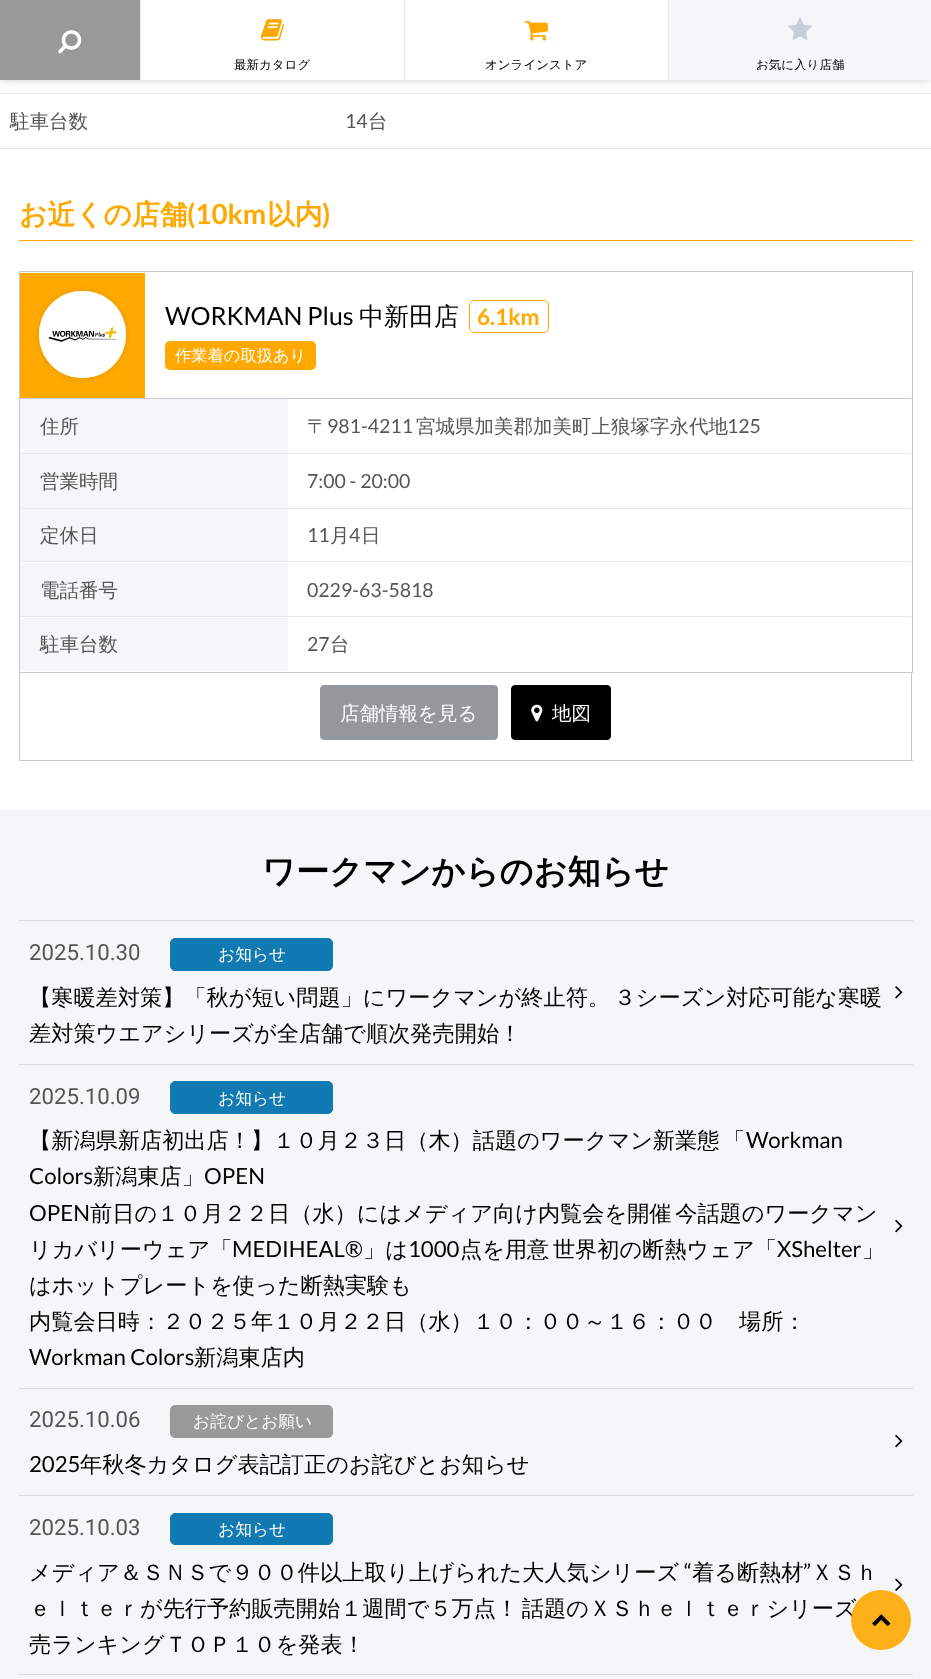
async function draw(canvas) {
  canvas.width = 931;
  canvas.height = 1679;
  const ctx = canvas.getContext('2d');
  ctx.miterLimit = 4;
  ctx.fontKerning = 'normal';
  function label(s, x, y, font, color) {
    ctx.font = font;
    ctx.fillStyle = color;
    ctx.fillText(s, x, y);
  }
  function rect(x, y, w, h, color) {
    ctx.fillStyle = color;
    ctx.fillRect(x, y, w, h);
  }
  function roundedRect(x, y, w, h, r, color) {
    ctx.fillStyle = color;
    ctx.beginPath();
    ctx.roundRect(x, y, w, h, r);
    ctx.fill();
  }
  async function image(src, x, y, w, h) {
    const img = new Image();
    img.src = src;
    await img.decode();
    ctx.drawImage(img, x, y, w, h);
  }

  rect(0, 0, 931, 1679, '#fff');
  rect(0, 93, 931, 1, '#e3e4e9');
  ctx.fillStyle = '#00000033';
  ctx.filter = 'blur(5px)';
  ctx.beginPath();
  ctx.rect(0, 0, 931, 80);
  ctx.fill();
  ctx.filter = 'none';
  rect(141, 0, 527, 80, '#fff');
  rect(0, 0, 140, 80, '#999');
  await image('assets/img1.png', 58, 30, 24, 24);
  rect(140, 0, 1, 80, '#e6e9ee');
  await image('assets/img2.png', 260, 19, 25, 22);
  ctx.save();
  ctx.beginPath();
  ctx.rect(146, 58, 253, 12);
  ctx.clip();
  label('最新カタログ', 234, 69, '500 12.5px WenQuanYi Zen Hei', '#000');
  ctx.restore();
  rect(404, 0, 1, 80, '#e6e9ee');
  await image('assets/img3.png', 524, 20, 24, 21);
  ctx.save();
  ctx.beginPath();
  ctx.rect(410, 58, 253, 12);
  ctx.clip();
  label('オンラインストア', 485, 69, '500 12.5px WenQuanYi Zen Hei', '#000');
  ctx.restore();
  rect(669, 0, 262, 80, '#f5f6f8');
  rect(668, 0, 1, 80, '#e6e9ee');
  await image('assets/img4.png', 788, 18, 24, 22);
  ctx.save();
  ctx.beginPath();
  ctx.rect(674, 58, 252, 12);
  ctx.clip();
  label('お気に入り店舗', 756, 69, '500 12.5px WenQuanYi Zen Hei', '#000');
  ctx.restore();
  rect(0, 148, 931, 1, '#e3e4e9');
  label('駐車台数', 10, 128, '500 19.5px WenQuanYi Zen Hei', '#555');
  label('14', 345, 128, '19.5px Lato', '#555');
  label('台', 368, 128, '500 19.5px WenQuanYi Zen Hei', '#555');
  rect(19, 240, 894, 1, '#ffa900');
  label('お近くの店舗', 19, 224, 'bold 27.75px WenQuanYi Zen Hei', '#ffa900');
  label('(10km', 187, 224, 'bold 27.75px Lato', '#ffa900');
  label('以内', 267, 224, 'bold 27.75px WenQuanYi Zen Hei', '#ffa900');
  label(')', 322, 224, 'bold 27.75px Lato', '#ffa900');
  rect(20, 399, 268, 54, '#f5f6f8');
  rect(20, 454, 268, 54, '#f5f6f8');
  rect(20, 509, 268, 52, '#f5f6f8');
  rect(20, 563, 268, 53, '#f5f6f8');
  rect(20, 618, 268, 53, '#f5f6f8');
  ctx.strokeStyle = '#c6c9d3';
  ctx.strokeRect(19.5, 271.5, 893, 401);
  rect(20, 398, 891, 1, '#c6c9d3');
  rect(20, 273, 125, 125, '#ffa900');
  ctx.fillStyle = '#0000001a';
  ctx.filter = 'blur(3px)';
  ctx.beginPath();
  ctx.roundRect(39, 291, 87, 88, 43.5);
  ctx.fill();
  ctx.filter = 'none';
  await image('assets/img5.png', 38, 290, 89, 89);
  label('WORKMAN Plus', 165, 325, '25px Lato', '#000');
  label('中新田店', 359, 325, '500 25px WenQuanYi Zen Hei', '#000');
  ctx.beginPath();
  ctx.roundRect(469.5, 300.5, 79, 32, 4.5);
  ctx.strokeStyle = '#ffa900';
  ctx.stroke();
  label('6.1km', 477, 325, 'bold 22.5px Lato', '#ffa900');
  roundedRect(165, 341, 151, 29, 5, '#ffa900');
  label('作業着の取扱あり', 175, 361, '500 16.25px WenQuanYi Zen Hei', '#fff');
  label('住所', 40, 433, '500 19.5px WenQuanYi Zen Hei', '#555');
  label('〒', 307, 433, '500 19.5px WenQuanYi Zen Hei', '#555');
  label('981-4211', 327, 433, '19.5px Lato', '#555');
  label('宮城県加美郡加美町上狼塚字永代地', 416, 433, '500 19.5px WenQuanYi Zen Hei', '#555');
  label('125', 727, 433, '19.5px Lato', '#555');
  rect(20, 453, 891, 1, '#e6e9ee');
  label('営業時間', 40, 488, '500 19.5px WenQuanYi Zen Hei', '#555');
  label('7:00 - 20:00', 307, 488, '19.5px Lato', '#555');
  rect(20, 508, 891, 1, '#e6e9ee');
  label('定休日', 40, 542, '500 19.5px WenQuanYi Zen Hei', '#555');
  label('11', 307, 542, '19.5px Lato', '#555');
  label('月', 330, 542, '500 19.5px WenQuanYi Zen Hei', '#555');
  label('4', 349, 542, '19.5px Lato', '#555');
  label('日', 361, 542, '500 19.5px WenQuanYi Zen Hei', '#555');
  rect(20, 561, 891, 1, '#e6e9ee');
  label('電話番号', 40, 597, '500 19.5px WenQuanYi Zen Hei', '#555');
  label('0229-63-5818', 307, 597, '19.5px Lato', '#555');
  rect(20, 616, 891, 1, '#e6e9ee');
  label('駐車台数', 40, 651, '500 19.5px WenQuanYi Zen Hei', '#555');
  label('27', 307, 651, '19.5px Lato', '#555');
  label('台', 330, 651, '500 19.5px WenQuanYi Zen Hei', '#555');
  rect(911, 673, 1, 88, '#c6c9d3');
  rect(19, 760, 894, 1, '#c6c9d3');
  rect(19, 673, 1, 88, '#c6c9d3');
  ctx.fillStyle = '#95989b';
  ctx.beginPath();
  ctx.roundRect(320.5, 685.5, 177, 54, 3.5);
  ctx.fill();
  ctx.strokeStyle = '#95989b';
  ctx.stroke();
  label('店舗情報を見る', 340, 720, '500 19.5px WenQuanYi Zen Hei', '#fff');
  ctx.fillStyle = '#000';
  ctx.beginPath();
  ctx.roundRect(511.5, 685.5, 99, 54, 3.5);
  ctx.fill();
  ctx.strokeStyle = '#000';
  ctx.stroke();
  await image('assets/img6.png', 531, 704, 12, 18);
  label('地図', 552, 720, '500 19.5px WenQuanYi Zen Hei', '#fff');
  rect(0, 810, 931, 869, '#f5f6f8');
  label('ワークマンからのお知らせ', 262, 883, 'bold 33.25px WenQuanYi Zen Hei', '#000');
  rect(19, 920, 894, 1, '#d7dbe3');
  rect(19, 1064, 894, 1, '#d7dbe3');
  label('2025.10.30', 29, 960, '22.2px Roboto', '#555');
  ctx.fillStyle = '#117ab3';
  ctx.beginPath();
  ctx.roundRect(170.5, 938.5, 162, 32, 4.5);
  ctx.fill();
  ctx.strokeStyle = '#117ab3';
  ctx.stroke();
  label('お知らせ', 218, 960, '500 16.75px WenQuanYi Zen Hei', '#fff');
  ctx.wordSpacing = '-3px';
  label('【寒暖差対策】「秋が短い問題」にワークマンが終止符。 ３シーズン対応可能な寒暖', 29, 1005, '500 22.2px WenQuanYi Zen Hei', '#000');
  ctx.wordSpacing = '0px';
  label('差対策ウエアシリーズが全店舗で順次発売開始！', 29, 1041, '500 22.2px WenQuanYi Zen Hei', '#000');
  await image('assets/img7.png', 895, 986, 8, 13);
  rect(19, 1388, 894, 1, '#d7dbe3');
  label('2025.10.09', 29, 1104, '22.2px Roboto', '#555');
  ctx.fillStyle = '#117ab3';
  ctx.beginPath();
  ctx.roundRect(170.5, 1081.5, 162, 32, 4.5);
  ctx.fill();
  ctx.stroke();
  label('お知らせ', 218, 1104, '500 16.75px WenQuanYi Zen Hei', '#fff');
  ctx.wordSpacing = '-3px';
  label('【新潟県新店初出店！】１０月２３日（木）話題のワークマン新業態 「', 29, 1148, '500 22.2px WenQuanYi Zen Hei', '#000');
  ctx.wordSpacing = '0px';
  label('Workman', 746, 1148, '22.2px Lato', '#000');
  label('Colors', 29, 1184, '22.2px Lato', '#000');
  label('新潟東店」', 93, 1184, '500 22.2px WenQuanYi Zen Hei', '#000');
  label('OPEN', 204, 1184, '22.2px Lato', '#000');
  label('OPEN', 29, 1221, '22.2px Lato', '#000');
  ctx.wordSpacing = '-3px';
  label('前日の１０月２２日（水）にはメディア向け内覧会を開催 今話題のワークマン', 90, 1221, '500 22.2px WenQuanYi Zen Hei', '#000');
  ctx.wordSpacing = '0px';
  label('リカバリーウェア「', 29, 1257, '500 22.2px WenQuanYi Zen Hei', '#000');
  label('MEDIHEAL®', 232, 1257, '22.2px Lato', '#000');
  label('」は', 363, 1257, '500 22.2px WenQuanYi Zen Hei', '#000');
  label('1000', 408, 1257, '22.2px Lato', '#000');
  ctx.wordSpacing = '-3px';
  label('点を用意 世界初の断熱ウェア「', 460, 1257, '500 22.2px WenQuanYi Zen Hei', '#000');
  ctx.wordSpacing = '0px';
  label('XShelter', 777, 1257, '22.2px Lato', '#000');
  label('」', 862, 1257, '500 22.2px WenQuanYi Zen Hei', '#000');
  label('はホットプレートを使った断熱実験も', 29, 1293, '500 22.2px WenQuanYi Zen Hei', '#000');
  label('内覧会日時：２０２５年１０月２２日（水）１０：００～１６：００　場所：', 29, 1329, '500 22.2px WenQuanYi Zen Hei', '#000');
  label('Workman Colors', 29, 1365, '22.2px Lato', '#000');
  label('新潟東店内', 194, 1365, '500 22.2px WenQuanYi Zen Hei', '#000');
  await image('assets/img8.png', 895, 1219, 8, 14);
  rect(19, 1495, 894, 1, '#d7dbe3');
  label('2025.10.06', 29, 1427, '22.2px Roboto', '#555');
  ctx.fillStyle = '#999';
  ctx.beginPath();
  ctx.roundRect(170.5, 1405.5, 162, 32, 4.5);
  ctx.fill();
  ctx.strokeStyle = '#999';
  ctx.stroke();
  label('お詫びとお願い', 193, 1427, '500 16.75px WenQuanYi Zen Hei', '#fff');
  await image('assets/img8.png', 895, 1434, 8, 14);
  label('2025', 29, 1472, '22.2px Lato', '#000');
  label('年秋冬カタログ表記訂正のお詫びとお知らせ', 80, 1472, '500 22.2px WenQuanYi Zen Hei', '#000');
  rect(19, 1674, 894, 1, '#d7dbe3');
  label('2025.10.03', 29, 1535, '22.2px Roboto', '#555');
  ctx.fillStyle = '#117ab3';
  ctx.beginPath();
  ctx.roundRect(170.5, 1513.5, 162, 31, 4.5);
  ctx.fill();
  ctx.strokeStyle = '#117ab3';
  ctx.stroke();
  label('お知らせ', 218, 1535, '500 16.75px WenQuanYi Zen Hei', '#fff');
  label('メディア＆ＳＮＳで９００件以上取り上げられた大人気シリーズ', 29, 1580, '500 22.2px WenQuanYi Zen Hei', '#000');
  label('“', 684, 1580, '22.2px Lato', '#000');
  label('着る断熱材', 692, 1580, '500 22.2px WenQuanYi Zen Hei', '#000');
  label('”', 803, 1580, '22.2px Lato', '#000');
  label('ＸＳｈ', 811, 1580, '500 22.2px WenQuanYi Zen Hei', '#000');
  ctx.wordSpacing = '-3px';
  label('ｅｌｔｅｒが先行予約販売開始１週間で５万点！ 話題のＸＳｈｅｌｔｅｒシリーズ', 29, 1616, '500 22.2px WenQuanYi Zen Hei', '#000');
  ctx.wordSpacing = '0px';
  label('売ランキングＴＯＰ１０を発表！', 29, 1652, '500 22.2px WenQuanYi Zen Hei', '#000');
  await image('assets/img9.png', 895, 1578, 8, 13);
  ctx.fillStyle = '#ffa900e6';
  ctx.beginPath();
  ctx.arc(881, 1620, 30, 0, 2 * Math.PI);
  ctx.fill();
  await image('assets/img10.png', 872, 1614, 19, 12);
}

draw(document.querySelector('canvas'));
